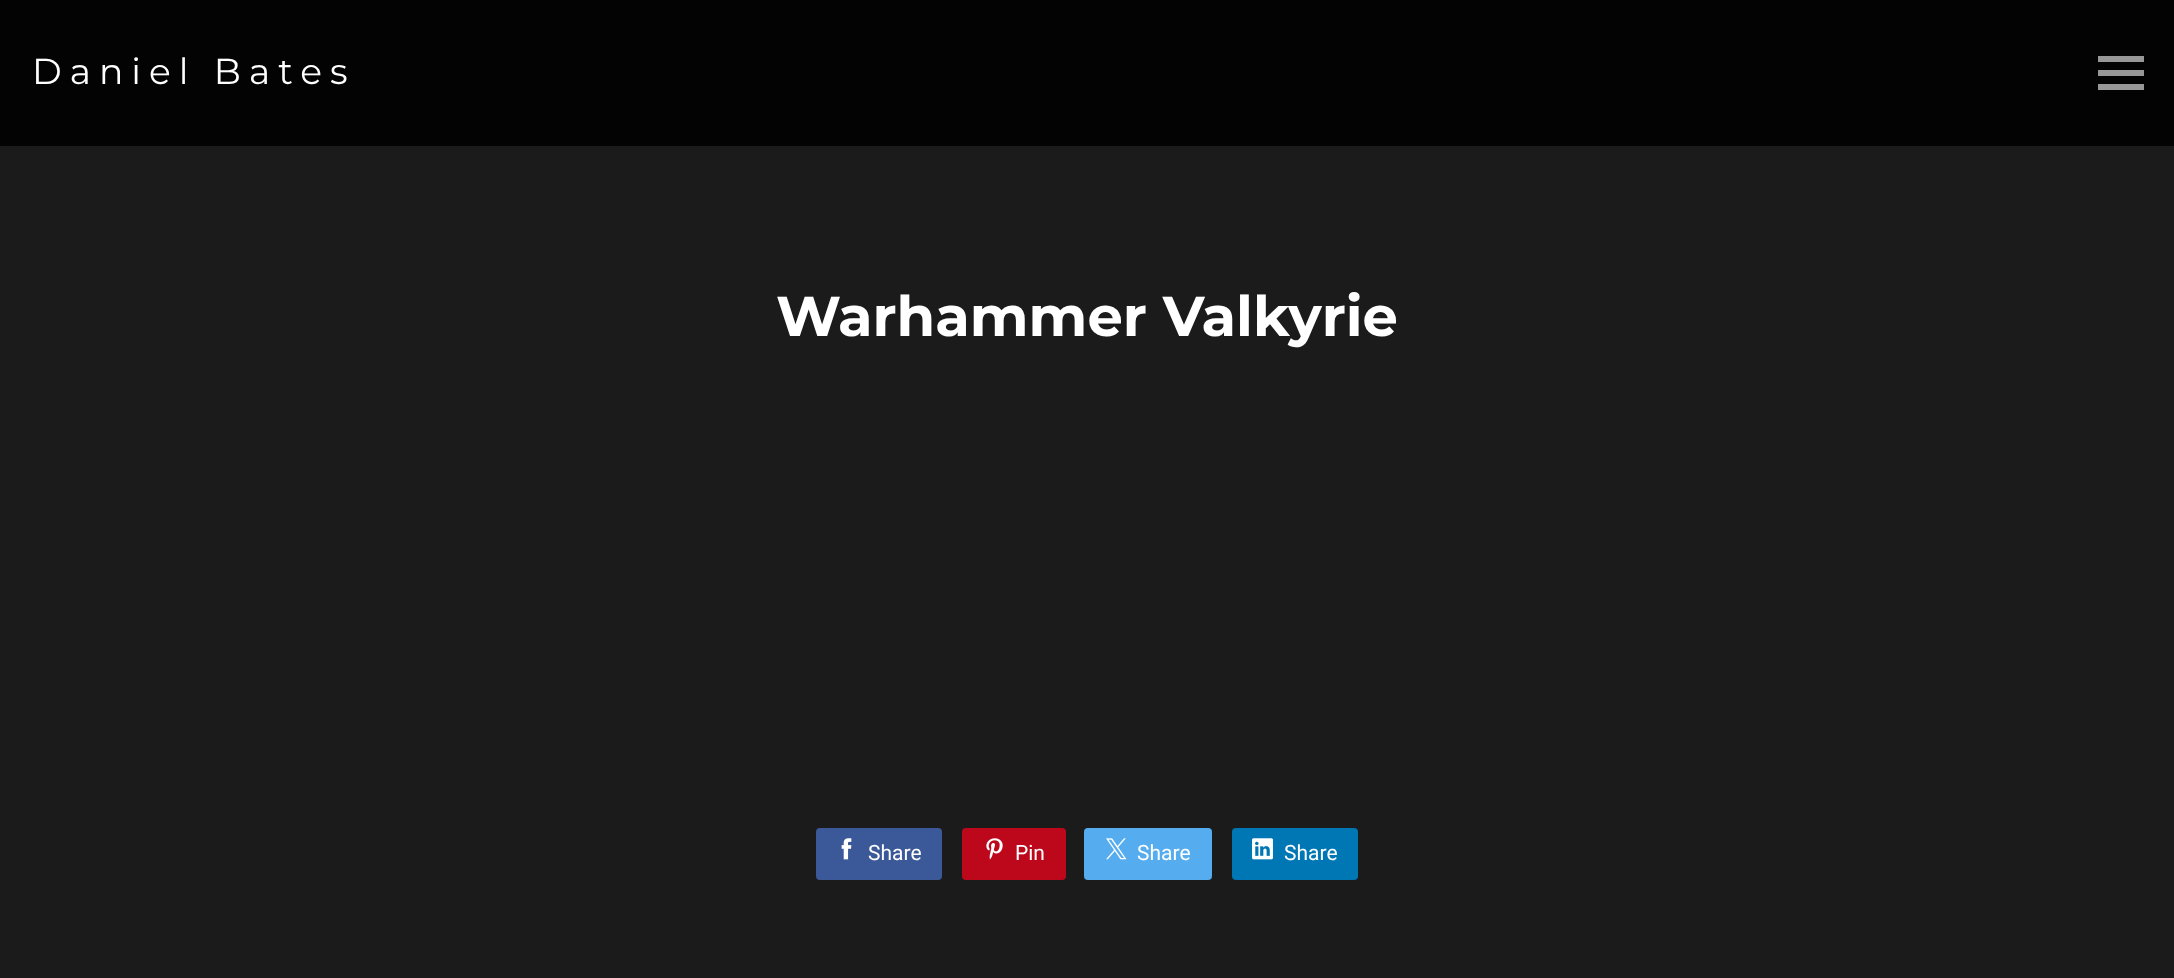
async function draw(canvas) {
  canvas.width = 2174;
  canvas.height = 978;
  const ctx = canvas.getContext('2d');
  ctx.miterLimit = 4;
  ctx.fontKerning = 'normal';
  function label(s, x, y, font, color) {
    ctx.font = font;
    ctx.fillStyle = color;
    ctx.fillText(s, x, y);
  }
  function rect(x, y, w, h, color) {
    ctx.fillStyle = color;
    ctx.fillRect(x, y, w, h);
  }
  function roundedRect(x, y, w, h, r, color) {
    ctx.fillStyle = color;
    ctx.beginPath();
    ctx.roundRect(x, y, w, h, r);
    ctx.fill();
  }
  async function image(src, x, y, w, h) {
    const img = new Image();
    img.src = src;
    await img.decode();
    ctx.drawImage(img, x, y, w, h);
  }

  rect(0, 0, 2174, 978, '#1b1b1b');
  rect(0, 0, 2174, 146, '#030303');
  ctx.letterSpacing = '8px';
  label('Daniel Bates', 32, 84, '36px Montserrat', '#fff');
  rect(2098, 56, 46, 6, '#979797');
  rect(2098, 70, 46, 6, '#979797');
  rect(2098, 84, 46, 6, '#979797');
  ctx.letterSpacing = '0px';
  label('Warhammer Valkyrie', 776, 336, 'bold 56px Montserrat', '#fff');
  roundedRect(816, 828, 126, 52, 4, '#3b5999');
  await image('assets/img1.png', 841, 838, 11, 22);
  label('Share', 868, 860, '21px Roboto', '#fff');
  roundedRect(962, 828, 104, 52, 4, '#bd081c');
  await image('assets/img2.png', 986, 838, 17, 22);
  label('Pin', 1015, 860, '21px Roboto', '#fff');
  roundedRect(1084, 828, 128, 52, 4, '#55acee');
  await image('assets/img3.png', 1106, 838, 21, 22);
  label('Share', 1137, 860, '21px Roboto', '#fff');
  roundedRect(1232, 828, 126, 52, 4, '#0077b5');
  await image('assets/img4.png', 1252, 838, 21, 22);
  label('Share', 1284, 860, '21px Roboto', '#fff');
}

draw(document.querySelector('canvas'));
